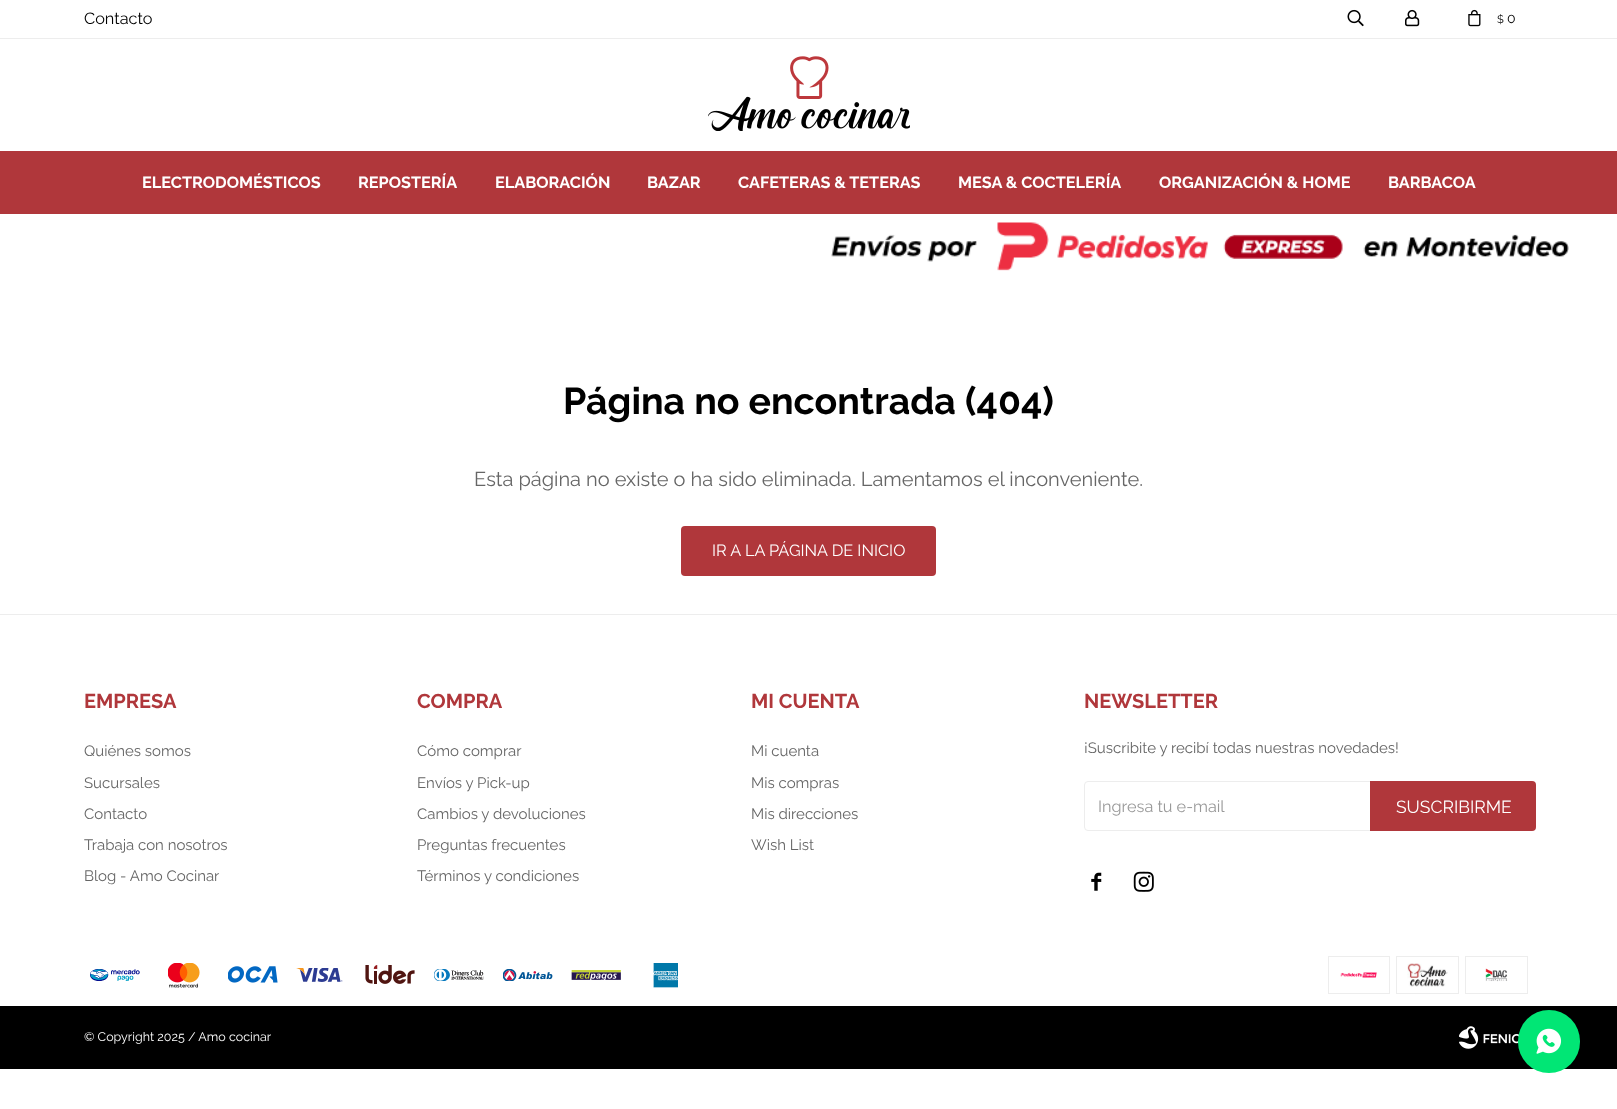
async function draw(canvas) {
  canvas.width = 1617;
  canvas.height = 1109;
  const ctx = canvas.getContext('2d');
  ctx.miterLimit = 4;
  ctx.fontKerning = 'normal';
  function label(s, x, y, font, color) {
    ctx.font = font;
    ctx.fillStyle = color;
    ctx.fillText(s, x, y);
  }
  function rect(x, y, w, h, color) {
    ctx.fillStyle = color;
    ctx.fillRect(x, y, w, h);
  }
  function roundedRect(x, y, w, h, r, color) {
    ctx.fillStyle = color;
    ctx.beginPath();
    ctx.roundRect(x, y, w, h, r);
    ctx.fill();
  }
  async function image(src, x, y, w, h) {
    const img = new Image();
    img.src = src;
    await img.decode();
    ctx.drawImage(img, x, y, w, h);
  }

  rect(0, 0, 1617, 1109, '#fff');
  label('Contacto', 84, 24, '16.25px Raleway', '#000');
  await image('assets/img1.png', 1347, 9, 17, 18);
  await image('assets/img2.png', 1405, 9, 15, 18);
  await image('assets/img3.png', 1468, 9, 13, 18);
  label('$', 1497, 23, '11px Raleway', '#000');
  label('0', 1507, 23, '14px Raleway', '#000');
  rect(0, 38, 1617, 1, '#ededed');
  await image('assets/img4.png', 708, 56, 202, 75);
  rect(0, 151, 1617, 63, '#b0373b');
  label('ELECTRODOMÉSTICOS', 142, 188, 'bold 16.25px Raleway', '#fff');
  label('REPOSTERÍA', 358, 188, 'bold 16.25px Raleway', '#fff');
  label('ELABORACIÓN', 495, 188, 'bold 16.25px Raleway', '#fff');
  label('BAZAR', 647, 188, 'bold 16.25px Raleway', '#fff');
  label('CAFETERAS & TETERAS', 738, 188, 'bold 16.25px Raleway', '#fff');
  label('MESA & COCTELERÍA', 958, 188, 'bold 16.25px Raleway', '#fff');
  label('ORGANIZACIÓN & HOME', 1159, 188, 'bold 16.25px Raleway', '#fff');
  label('BARBACOA', 1388, 188, 'bold 16.25px Raleway', '#fff');
  await image('assets/img5.png', 831, 222, 738, 49);
  label('Página no encontrada (404)', 563, 414, 'bold 37.5px Raleway', '#000');
  label('Esta página no existe o ha sido eliminada. Lamentamos el inconveniente.', 474, 486, '20px Raleway', '#666');
  roundedRect(681, 526, 255, 50, 4, '#b0373b');
  label('IR A LA PÁGINA DE INICIO', 712, 556, '16.25px Raleway', '#fff');
  rect(0, 614, 1617, 1, '#ededed');
  label('EMPRESA', 84, 708, 'bold 20px Raleway', '#b0373b');
  label('Quiénes somos', 84, 756, '15px Raleway', '#666');
  label('Sucursales', 84, 788, '15px Raleway', '#666');
  label('Contacto', 84, 819, '15px Raleway', '#666');
  label('Trabaja con nosotros', 84, 850, '15px Raleway', '#666');
  label('Blog - Amo Cocinar', 84, 881, '15px Raleway', '#666');
  label('COMPRA', 417, 708, 'bold 20px Raleway', '#b0373b');
  label('Cómo comprar', 417, 756, '15px Raleway', '#666');
  label('Envíos y Pick-up', 417, 788, '15px Raleway', '#666');
  label('Cambios y devoluciones', 417, 819, '15px Raleway', '#666');
  label('Preguntas frecuentes', 417, 850, '15px Raleway', '#666');
  label('Términos y condiciones', 417, 881, '15px Raleway', '#666');
  label('MI CUENTA', 751, 708, 'bold 20px Raleway', '#b0373b');
  label('Mi cuenta', 751, 756, '15px Raleway', '#666');
  label('Mis compras', 751, 788, '15px Raleway', '#666');
  label('Mis direcciones', 751, 819, '15px Raleway', '#666');
  label('Wish List', 751, 850, '15px Raleway', '#666');
  label('NEWSLETTER', 1084, 708, 'bold 20px Raleway', '#b0373b');
  label('¡Suscribite y recibí todas nuestras novedades!', 1084, 753, '15px Raleway', '#666');
  ctx.beginPath();
  ctx.roundRect(1084.5, 781.5, 449, 49, 3.5);
  ctx.strokeStyle = '#ededed';
  ctx.stroke();
  label('Ingresa tu e-mail', 1098, 812, '16.25px Raleway', '#999');
  ctx.fillStyle = '#b0373b';
  ctx.beginPath();
  ctx.roundRect(1370, 781, 166, 50, [0, 4, 4, 0]);
  ctx.fill();
  label('SUSCRIBIRME', 1396, 813, '17.5px Raleway', '#fff');
  await image('assets/img6.png', 1091, 872, 11, 19);
  await image('assets/img7.png', 1133, 871, 21, 21);
  await image('assets/img8.png', 90, 969, 50, 12);
  await image('assets/img9.png', 168, 963, 32, 25);
  await image('assets/img10.png', 228, 966, 50, 17);
  await image('assets/img11.png', 296, 968, 47, 14);
  await image('assets/img12.png', 365, 965, 50, 19);
  await image('assets/img13.png', 434, 969, 50, 12);
  await image('assets/img14.png', 503, 969, 50, 12);
  await image('assets/img15.png', 571, 970, 50, 10);
  await image('assets/img16.png', 653, 963, 25, 25);
  ctx.strokeRect(1328.5, 956.5, 61, 37);
  await image('assets/img17.png', 1340, 972, 37, 6);
  ctx.strokeRect(1396.5, 956.5, 62, 37);
  await image('assets/img18.png', 1407, 963, 41, 24);
  ctx.strokeRect(1465.5, 956.5, 62, 37);
  await image('assets/img19.png', 1485, 968, 23, 14);
  rect(0, 1006, 1617, 63, '#000');
  label('© Copyright 2025 / Amo cocinar', 84, 1041, '12.5px Raleway', '#fff');
  await image('assets/img20.png', 1459, 1026, 60, 23);
  roundedRect(1518, 1010, 62, 63, 31, '#01e675');
  await image('assets/img21.png', 1536, 1028, 26, 26);
}

draw(document.querySelector('canvas'));
